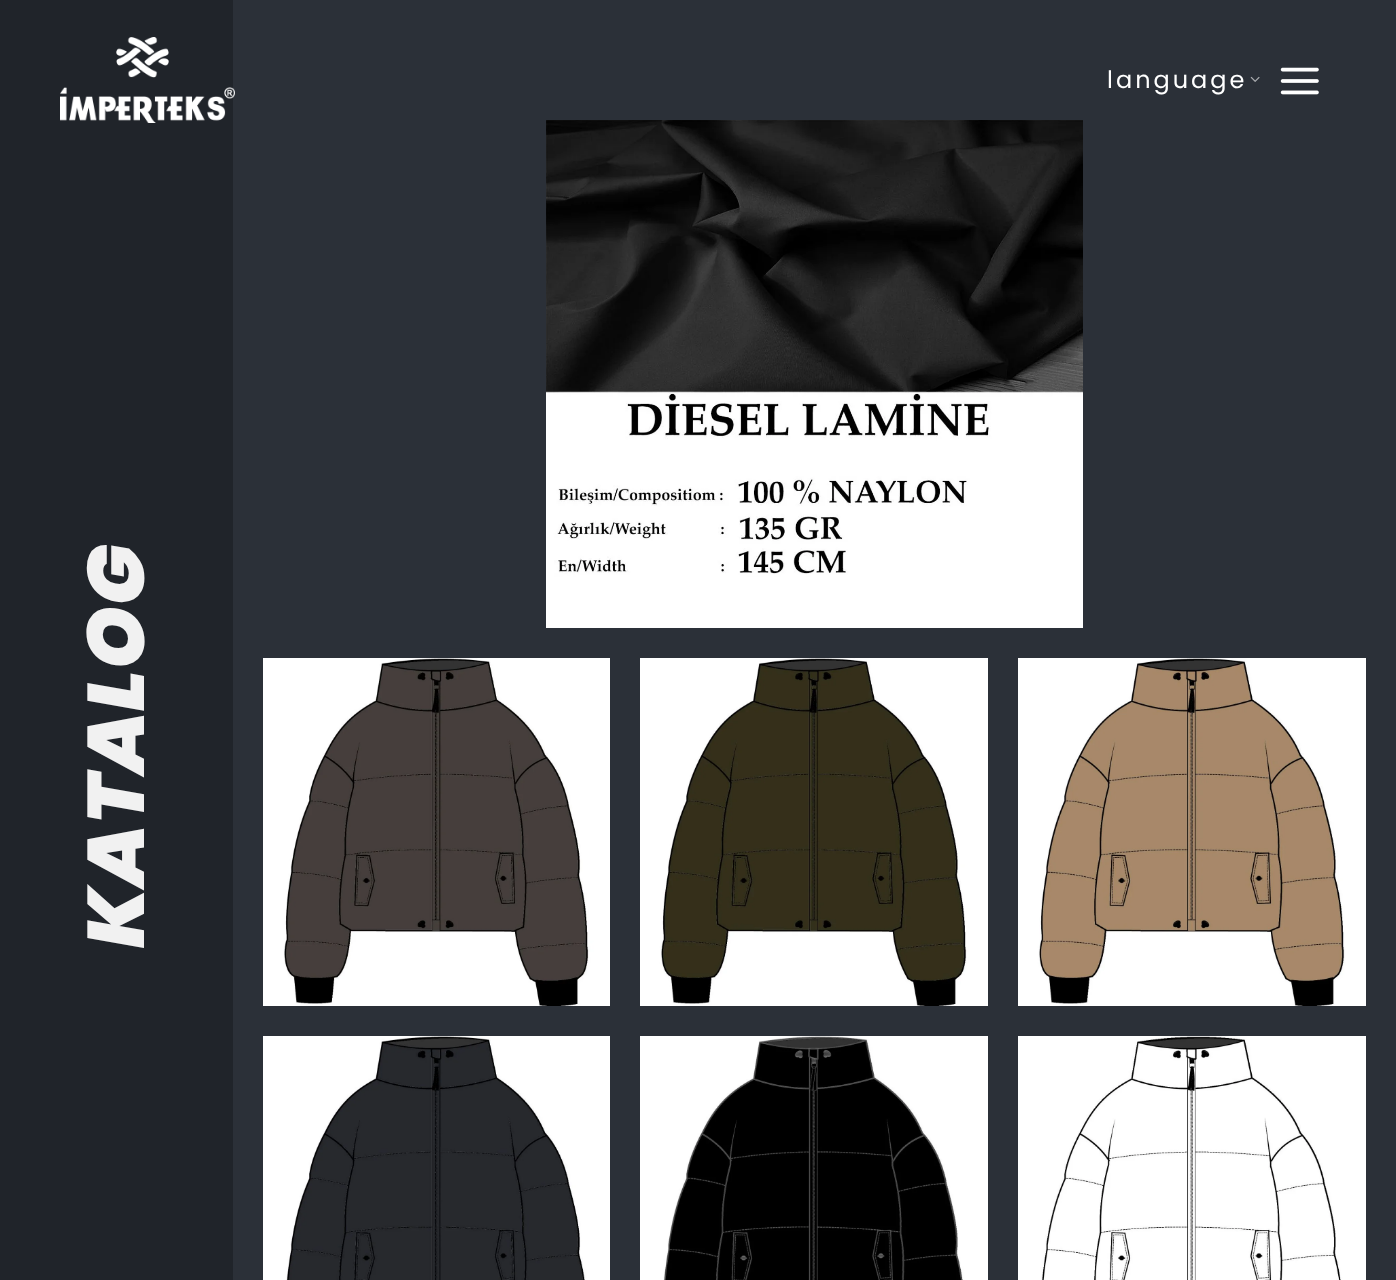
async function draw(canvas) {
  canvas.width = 1396;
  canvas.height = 1280;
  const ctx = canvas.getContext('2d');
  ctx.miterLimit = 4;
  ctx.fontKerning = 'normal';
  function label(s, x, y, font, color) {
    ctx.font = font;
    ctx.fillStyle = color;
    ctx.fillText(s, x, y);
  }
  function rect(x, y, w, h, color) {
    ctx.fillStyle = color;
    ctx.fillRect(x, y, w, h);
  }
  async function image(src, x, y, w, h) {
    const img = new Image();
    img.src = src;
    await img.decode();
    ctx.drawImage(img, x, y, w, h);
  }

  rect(0, 0, 1396, 1280, '#20242a');
  rect(233, 0, 1163, 1280, '#2b3038');
  await image('assets/img1.png', 60, 37, 175, 86);
  ctx.letterSpacing = '3px';
  label('language', 1107, 88, '24px Poppins', '#fff');
  await image('assets/img2.png', 1250, 76, 10, 6);
  await image('assets/img3.png', 1280, 67, 39, 28);
  ctx.letterSpacing = '1px';
  ctx.font = 'italic 900 80px Poppins';
  ctx.fillStyle = '#f1f1f1';
  ctx.save();
  ctx.translate(144, 948);
  ctx.rotate(-90 * Math.PI / 180);
  ctx.fillText('KATALOG', 0, 0);
  ctx.restore();
  await image('assets/img4.png', 546, 120, 537, 508);
  await image('assets/img5.png', 263, 658, 347, 348);
  await image('assets/img6.png', 640, 658, 348, 348);
  await image('assets/img7.png', 1018, 658, 348, 348);
  await image('assets/img8.png', 263, 1036, 347, 244);
  await image('assets/img9.png', 640, 1036, 348, 244);
  await image('assets/img10.png', 1018, 1036, 348, 244);
}

draw(document.querySelector('canvas'));
